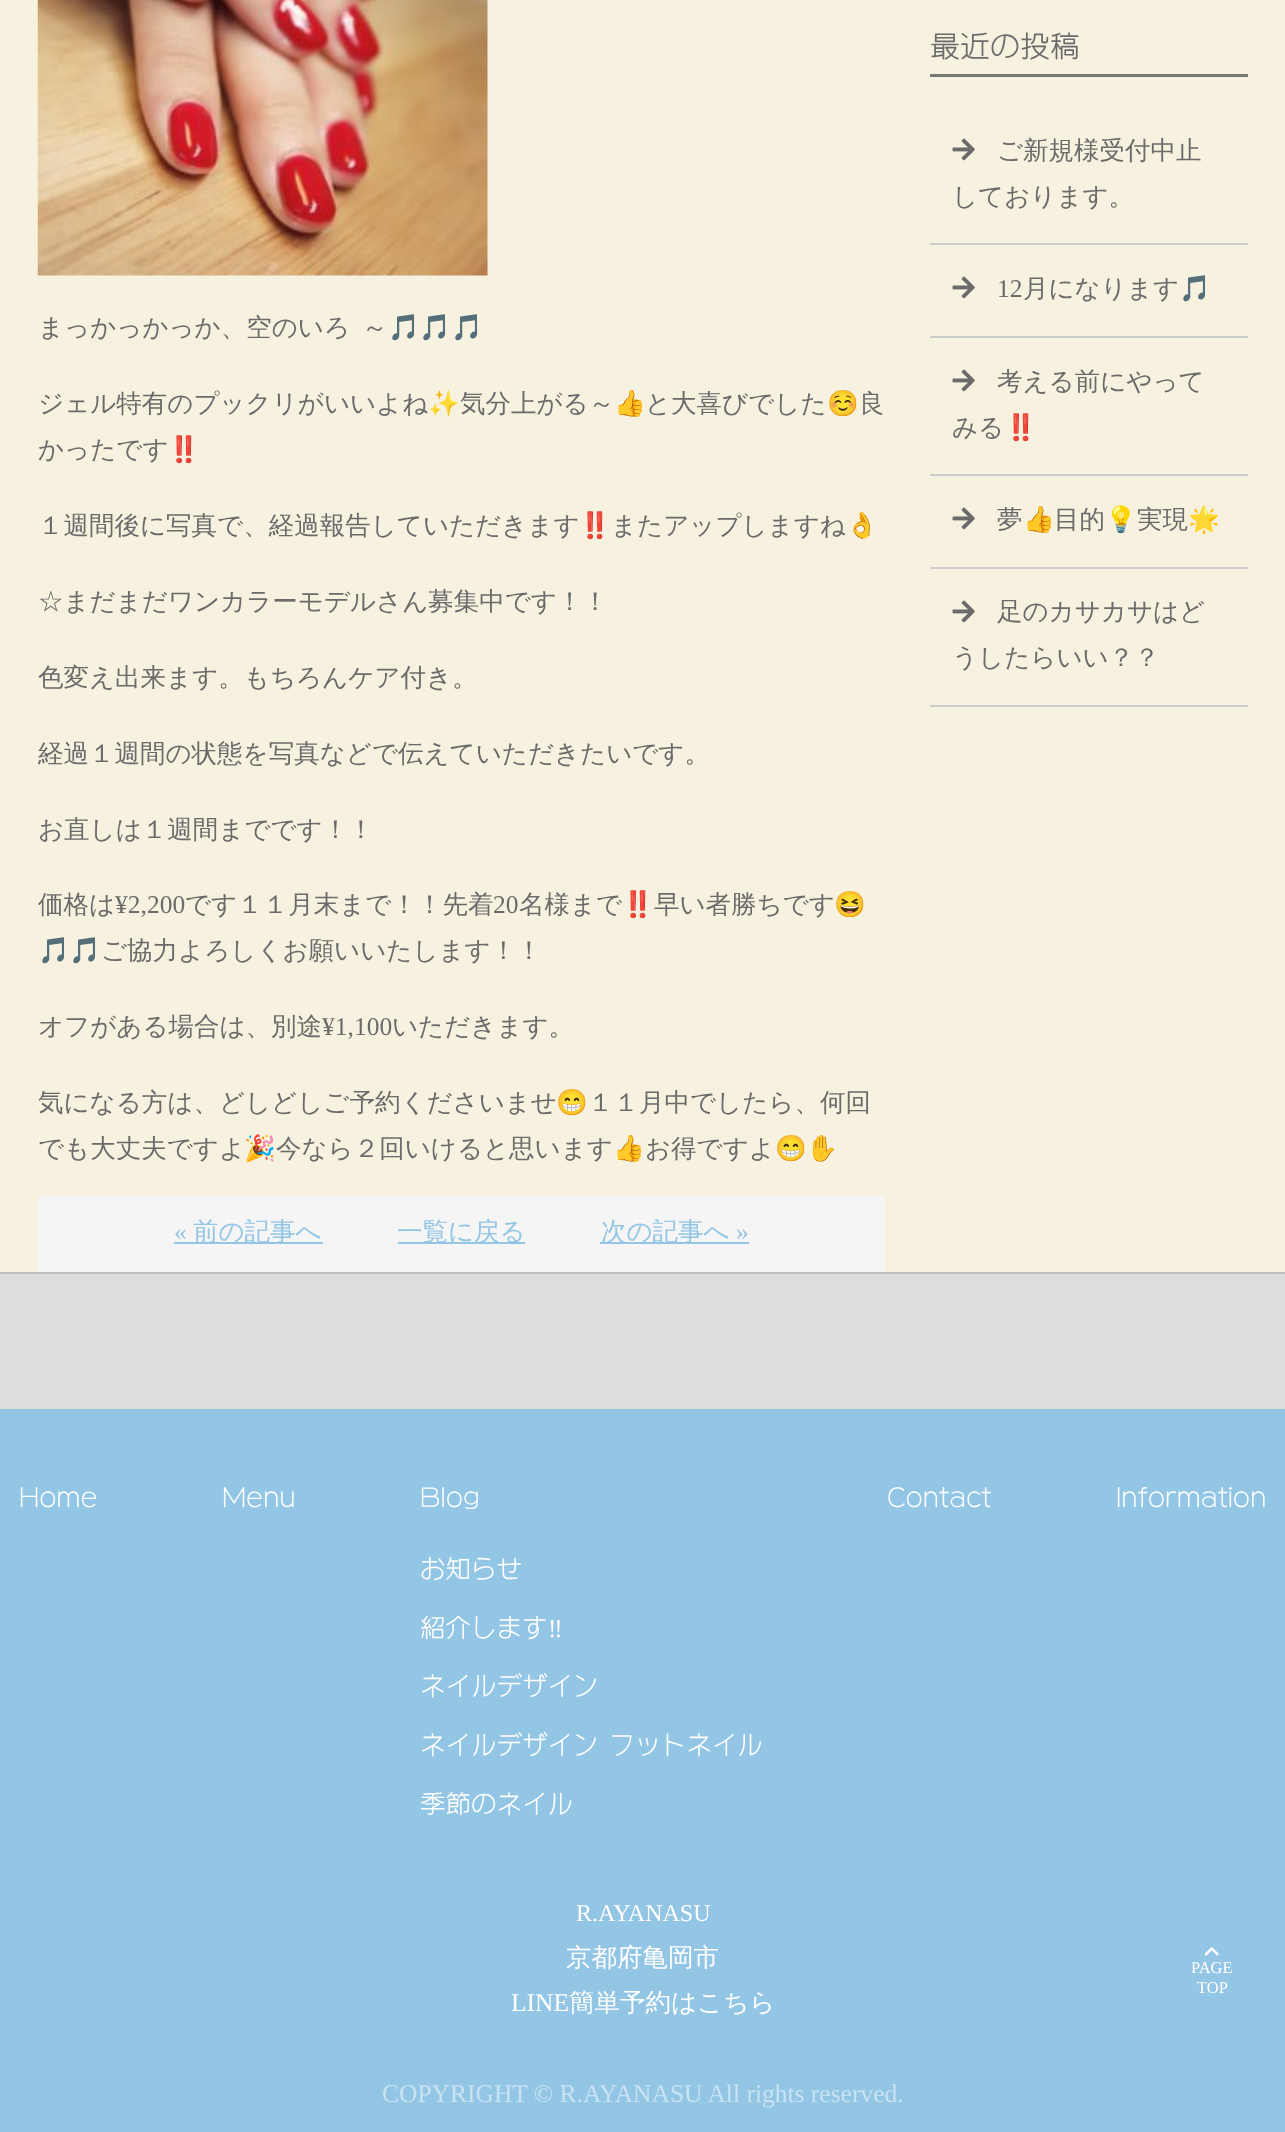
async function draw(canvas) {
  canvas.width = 1285;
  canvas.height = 2132;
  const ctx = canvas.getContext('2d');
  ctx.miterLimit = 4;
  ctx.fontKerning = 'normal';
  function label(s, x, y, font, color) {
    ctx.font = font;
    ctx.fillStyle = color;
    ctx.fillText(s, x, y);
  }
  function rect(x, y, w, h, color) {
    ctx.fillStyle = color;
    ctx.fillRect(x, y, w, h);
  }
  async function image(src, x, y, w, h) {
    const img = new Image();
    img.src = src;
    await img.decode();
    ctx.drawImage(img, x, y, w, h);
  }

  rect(0, 0, 1285, 2132, '#f7f2df');
  await image('assets/img1.png', 37, 0, 451, 276);
  label('まっかっかっか、空のいろ', 38, 336, '500 25.5px WenQuanYi Zen Hei', '#6b6b6b');
  label('～', 362, 336, '500 25.5px WenQuanYi Zen Hei', '#6b6b6b');
  label('🎵🎵🎵', 388, 336, '25.5px Noto Color Emoji', '#6b6b6b');
  label('ジェル特有のプックリがいいよね', 38, 412, '500 25.5px WenQuanYi Zen Hei', '#6b6b6b');
  label('✨', 428, 412, '25.5px Noto Color Emoji', '#6b6b6b');
  label('気分上がる～', 460, 412, '500 25.5px WenQuanYi Zen Hei', '#6b6b6b');
  label('👍', 614, 412, '25.5px Noto Color Emoji', '#6b6b6b');
  label('と大喜びでした', 645, 412, '500 25.5px WenQuanYi Zen Hei', '#6b6b6b');
  label('☺️', 827, 412, '25.5px Noto Color Emoji', '#6b6b6b');
  label('良', 859, 412, '500 25.5px WenQuanYi Zen Hei', '#6b6b6b');
  label('かったです', 38, 458, '500 25.5px WenQuanYi Zen Hei', '#6b6b6b');
  label('‼️', 168, 458, '25.5px Noto Color Emoji', '#6b6b6b');
  label('１週間後に写真で、経過報告していただきます', 38, 534, '500 25.5px WenQuanYi Zen Hei', '#6b6b6b');
  label('‼️', 579, 534, '25.5px Noto Color Emoji', '#6b6b6b');
  label('またアップしますね', 611, 534, '500 25.5px WenQuanYi Zen Hei', '#6b6b6b');
  label('👌', 846, 534, '25.5px Noto Color Emoji', '#6b6b6b');
  label('☆まだまだワンカラーモデルさん募集中です！！', 38, 610, '500 25.5px WenQuanYi Zen Hei', '#6b6b6b');
  label('色変え出来ます。もちろんケア付き。', 38, 686, '500 25.5px WenQuanYi Zen Hei', '#6b6b6b');
  ctx.save();
  ctx.beginPath();
  ctx.rect(38, 0, 847, 1173);
  ctx.clip();
  label('経過１週間の状態を写真などで伝えていただきたいです。', 38, 762, '500 25.5px WenQuanYi Zen Hei', '#6b6b6b');
  ctx.restore();
  label('お直しは１週間までです！！', 38, 838, '500 25.5px WenQuanYi Zen Hei', '#6b6b6b');
  label('価格は', 38, 913, '500 25.5px WenQuanYi Zen Hei', '#6b6b6b');
  label('¥2,200', 115, 913, '25.5px Liberation Serif', '#6b6b6b');
  label('です１１月末まで！！先着', 185, 913, '500 25.5px WenQuanYi Zen Hei', '#6b6b6b');
  label('20', 493, 913, '25.5px Liberation Serif', '#6b6b6b');
  label('名様まで', 519, 913, '500 25.5px WenQuanYi Zen Hei', '#6b6b6b');
  label('‼️', 622, 913, '25.5px Noto Color Emoji', '#6b6b6b');
  label('早い者勝ちです', 654, 913, '500 25.5px WenQuanYi Zen Hei', '#6b6b6b');
  label('😆', 834, 913, '25.5px Noto Color Emoji', '#6b6b6b');
  ctx.save();
  ctx.beginPath();
  ctx.rect(38, 0, 847, 1173);
  ctx.clip();
  label('🎵🎵', 38, 959, '25.5px Noto Color Emoji', '#6b6b6b');
  ctx.restore();
  label('ご協力よろしくお願いいたします！！', 101, 959, '500 25.5px WenQuanYi Zen Hei', '#6b6b6b');
  label('オフがある場合は、別途', 38, 1035, '500 25.5px WenQuanYi Zen Hei', '#6b6b6b');
  label('¥1,100', 322, 1035, '25.5px Liberation Serif', '#6b6b6b');
  label('いただきます。', 392, 1035, '500 25.5px WenQuanYi Zen Hei', '#6b6b6b');
  label('気になる方は、どしどしご予約くださいませ', 38, 1111, '500 25.5px WenQuanYi Zen Hei', '#6b6b6b');
  label('😁', 556, 1111, '25.5px Noto Color Emoji', '#6b6b6b');
  label('１１月中でしたら、何回', 588, 1111, '500 25.5px WenQuanYi Zen Hei', '#6b6b6b');
  label('でも大丈夫ですよ', 38, 1157, '500 25.5px WenQuanYi Zen Hei', '#6b6b6b');
  label('🎉', 244, 1157, '25.5px Noto Color Emoji', '#6b6b6b');
  label('今なら２回いけると思います', 276, 1157, '500 25.5px WenQuanYi Zen Hei', '#6b6b6b');
  label('👍', 613, 1157, '25.5px Noto Color Emoji', '#6b6b6b');
  label('お得ですよ', 645, 1157, '500 25.5px WenQuanYi Zen Hei', '#6b6b6b');
  label('😁✋', 775, 1157, '25.5px Noto Color Emoji', '#6b6b6b');
  rect(38, 1196, 847, 76, '#f5f5f5');
  label('«', 174, 1240, '25.5px Liberation Serif', '#93c5e5');
  rect(174, 1242, 149, 2, '#93c5e5');
  label('前の記事へ', 193, 1240, '500 25.5px WenQuanYi Zen Hei', '#93c5e5');
  rect(398, 1242, 127, 2, '#93c5e5');
  label('一覧に戻る', 397, 1240, '500 25.5px WenQuanYi Zen Hei', '#93c5e5');
  rect(600, 1242, 149, 2, '#93c5e5');
  label('次の記事へ', 601, 1240, '500 25.5px WenQuanYi Zen Hei', '#93c5e5');
  label('»', 736, 1240, '25.5px Liberation Serif', '#93c5e5');
  rect(930, 74, 318, 3, '#777');
  label('最近の投稿', 930, 57, '300 30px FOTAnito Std', '#6b6b6b');
  rect(930, 243, 318, 2, '#ccc');
  await image('assets/img2.png', 952, 138, 23, 23);
  label('ご新規様受付中止', 997, 159, '500 25.5px WenQuanYi Zen Hei', '#6b6b6b');
  label('しております。', 952, 205, '500 25.5px WenQuanYi Zen Hei', '#6b6b6b');
  rect(930, 336, 318, 2, '#ccc');
  await image('assets/img2.png', 952, 276, 23, 23);
  label('12', 997, 297, '25.5px Liberation Serif', '#6b6b6b');
  label('月になります', 1023, 297, '500 25.5px WenQuanYi Zen Hei', '#6b6b6b');
  label('🎵', 1179, 297, '25.5px Noto Color Emoji', '#6b6b6b');
  rect(930, 474, 318, 2, '#ccc');
  await image('assets/img2.png', 952, 369, 23, 23);
  label('考える前にやって', 997, 390, '500 25.5px WenQuanYi Zen Hei', '#6b6b6b');
  label('みる', 952, 436, '500 25.5px WenQuanYi Zen Hei', '#6b6b6b');
  label('‼️', 1005, 436, '25.5px Noto Color Emoji', '#6b6b6b');
  rect(930, 567, 318, 2, '#ccc');
  await image('assets/img2.png', 952, 507, 23, 23);
  label('夢', 997, 528, '500 25.5px WenQuanYi Zen Hei', '#6b6b6b');
  label('👍', 1023, 528, '25.5px Noto Color Emoji', '#6b6b6b');
  label('目的', 1054, 528, '500 25.5px WenQuanYi Zen Hei', '#6b6b6b');
  label('💡', 1105, 528, '25.5px Noto Color Emoji', '#6b6b6b');
  label('実現', 1137, 528, '500 25.5px WenQuanYi Zen Hei', '#6b6b6b');
  label('🌟', 1188, 528, '25.5px Noto Color Emoji', '#6b6b6b');
  rect(930, 705, 318, 2, '#ccc');
  await image('assets/img2.png', 952, 600, 23, 23);
  label('足のカサカサはど', 997, 620, '500 25.5px WenQuanYi Zen Hei', '#6b6b6b');
  label('うしたらいい？？', 952, 666, '500 25.5px WenQuanYi Zen Hei', '#6b6b6b');
  rect(0, 1274, 1285, 135, '#ddd');
  rect(0, 1272, 1285, 2, '#bfbfbf');
  rect(0, 1409, 1285, 723, '#93c5e5');
  label('Home', 19, 1506, '300 24px FOTAnito Std', '#fff');
  label('Menu', 222, 1506, '300 24px FOTAnito Std', '#fff');
  label('Blog', 420, 1506, '300 24px FOTAnito Std', '#fff');
  label('お知らせ', 420, 1578, '300 25.5px FOTAnito Std', '#fff');
  label('紹介します', 420, 1637, '300 25.5px FOTAnito Std', '#fff');
  label('‼', 548, 1637, '25.5px Liberation Serif', '#fff');
  label('ネイルデザイン', 420, 1695, '300 25.5px FOTAnito Std', '#fff');
  label('ネイルデザイン フットネイル', 420, 1754, '300 25.5px FOTAnito Std', '#fff');
  label('季節のネイル', 420, 1813, '300 25.5px FOTAnito Std', '#fff');
  label('Contact', 887, 1506, '300 24px FOTAnito Std', '#fff');
  label('Information', 1116, 1506, '300 24px FOTAnito Std', '#fff');
  label('R.AYANASU', 576, 1921, '24px Liberation Serif', '#fff');
  label('京都府亀岡市', 566, 1966, '500 25.5px WenQuanYi Zen Hei', '#fff');
  label('LINE', 511, 2011, '25.5px Liberation Serif', '#fff');
  label('簡単予約はこちら', 569, 2011, '500 25.5px WenQuanYi Zen Hei', '#fff');
  label('COPYRIGHT © R.AYANASU All rights reserved.', 382, 2102, '25.5px Liberation Serif', '#c9e2f2');
  await image('assets/img3.png', 1204, 1947, 15, 9);
  label('PAGE', 1191, 1973, '16.5px Liberation Serif', '#fff');
  label('TOP', 1197, 1993, '16.5px Liberation Serif', '#fff');
}

draw(document.querySelector('canvas'));
